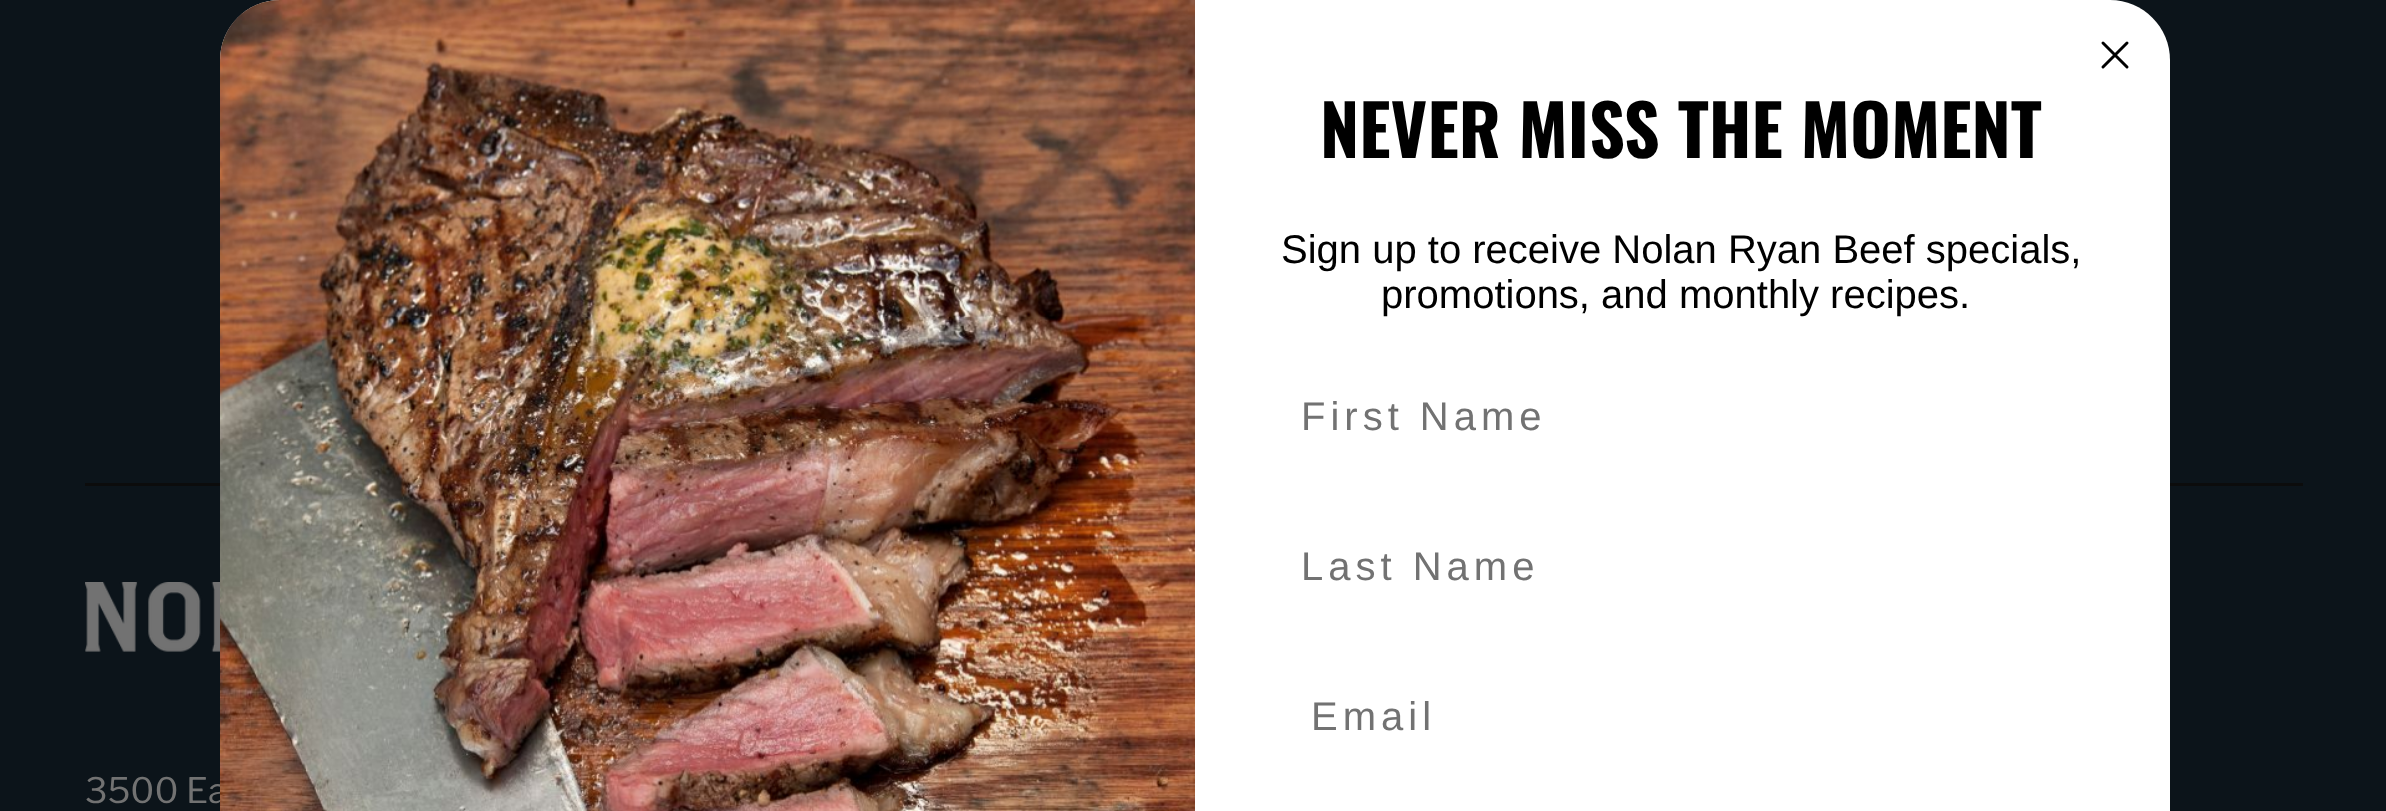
async function draw(canvas) {
  canvas.width = 2386;
  canvas.height = 811;
  const ctx = canvas.getContext('2d');
  ctx.miterLimit = 4;
  ctx.fontKerning = 'normal';
  function label(s, x, y, font, color) {
    ctx.font = font;
    ctx.fillStyle = color;
    ctx.fillText(s, x, y);
  }
  function rect(x, y, w, h, color) {
    ctx.fillStyle = color;
    ctx.fillRect(x, y, w, h);
  }
  async function image(src, x, y, w, h) {
    const img = new Image();
    img.src = src;
    await img.decode();
    ctx.drawImage(img, x, y, w, h);
  }
  let path;

  rect(0, 0, 2386, 811, '#0c141a');
  rect(85, 483, 2218, 3, '#0c0c0c');
  label('3500 Ea', 85, 803, '100 35px Libre Franklin', '#727272');
  ctx.fillStyle = '#fff';
  path = new Path2D('M280 0H2110C2143 0 2170 27 2170 60V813H220V60C220 27 247 0 280 0Z');
  ctx.fill(path);
  path = new Path2D('M2103 43L2127 67M2103 67L2127 43Z');
  ctx.strokeStyle = '#000';
  ctx.lineWidth = 3;
  ctx.lineCap = 'round';
  ctx.lineJoin = 'round';
  ctx.stroke(path);
  await image('assets/img1.png', 220, 0, 975, 811);
  label('NEVER MISS THE MOMENT', 1320, 158, 'bold 70px Oswald', '#000');
  label('Sign up to receive Nolan Ryan Beef specials,', 1281, 263, '40px Liberation Sans', '#000');
  label('promotions, and monthly recipes.', 1381, 308, '40px Liberation Sans', '#000');
  ctx.letterSpacing = '5px';
  label('First Name', 1301, 430, '40px Liberation Sans', '#727272');
  label('Last Name', 1301, 580, '40px Liberation Sans', '#727272');
  label('Email', 1311, 730, '40px Liberation Sans', '#727272');
  await image('assets/img2.png', 85, 582, 135, 70);
}

draw(document.querySelector('canvas'));
